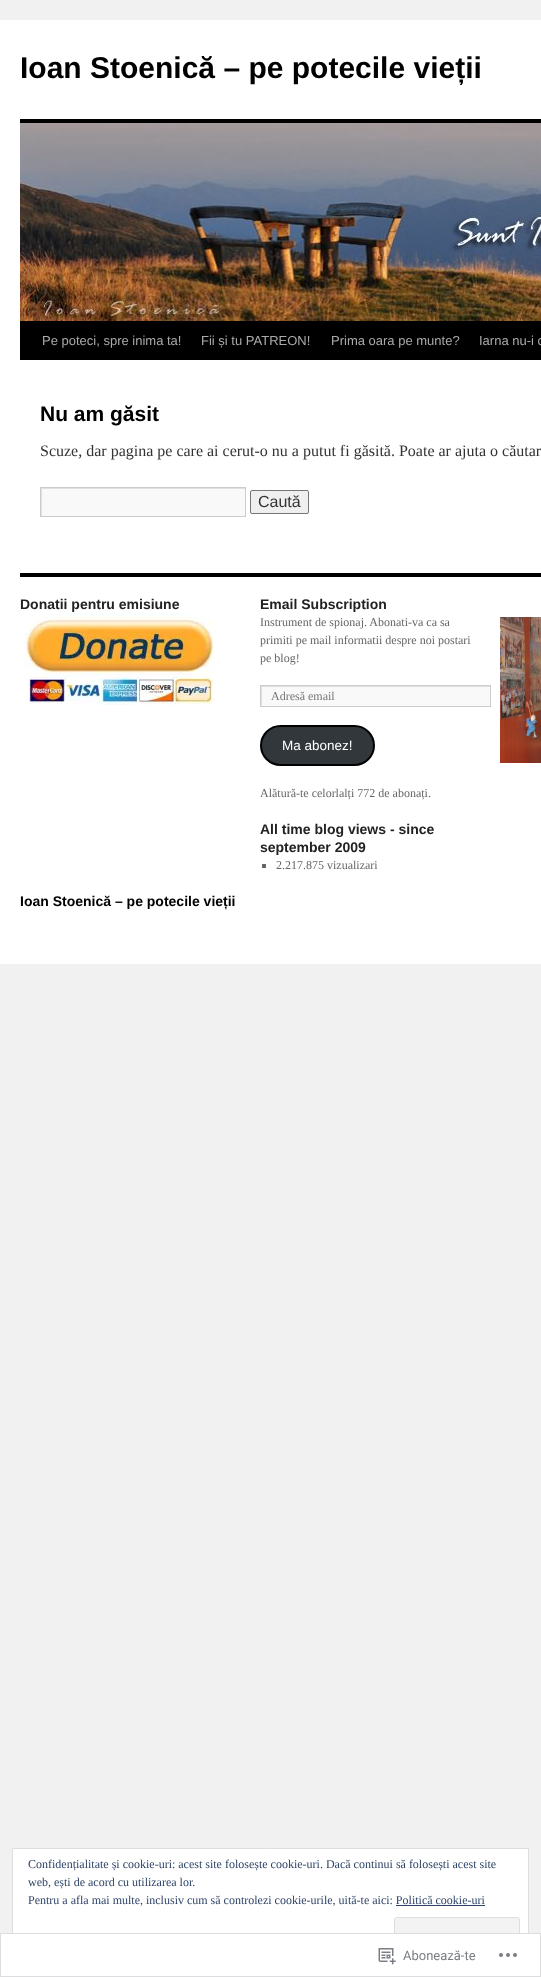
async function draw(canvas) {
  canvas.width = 541;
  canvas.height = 1977;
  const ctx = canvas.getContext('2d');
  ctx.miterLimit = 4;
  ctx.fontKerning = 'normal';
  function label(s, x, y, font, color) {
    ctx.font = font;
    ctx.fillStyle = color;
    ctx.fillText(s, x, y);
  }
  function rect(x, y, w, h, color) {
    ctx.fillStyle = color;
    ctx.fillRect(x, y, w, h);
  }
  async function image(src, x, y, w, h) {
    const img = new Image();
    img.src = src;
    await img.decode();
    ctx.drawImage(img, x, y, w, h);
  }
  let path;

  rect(0, 0, 541, 1977, '#f1f1f1');
  rect(0, 20, 541, 944, '#fff');
  label('Ioan Stoenică – pe potecile vieții', 20, 78, 'bold 30px Liberation Sans', '#000');
  rect(20, 119, 521, 4, '#000');
  rect(20, 321, 521, 39, '#000');
  await image('assets/img1.png', 20, 123, 521, 198);
  label('Pe poteci, spre inima ta!', 42, 345, '13px Liberation Sans', '#aaa');
  label('Fii și tu PATREON!', 201, 345, '13px Liberation Sans', '#aaa');
  label('Prima oara pe munte?', 331, 345, '13px Liberation Sans', '#aaa');
  label('Iarna nu-i c', 479, 345, '13px Liberation Sans', '#aaa');
  label('Nu am găsit', 40, 421, 'bold 21px Liberation Sans', '#000');
  label('Scuze, dar pagina pe care ai cerut-o nu a putut fi găsită. Poate ar ajuta o căutar', 40, 456, '16px Liberation Serif', '#333');
  rect(42, 489, 203, 27, '#f9f9f9');
  ctx.save();
  ctx.beginPath();
  ctx.rect(41, 488, 204, 28);
  ctx.clip();
  ctx.fillStyle = '#e0e0e0';
  path = new Path2D('M-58 389H344V615H-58ZM42 489H246V517H42Z');
  ctx.fill(path, 'evenodd');
  ctx.restore();
  ctx.strokeStyle = '#ccc';
  ctx.strokeRect(40.5, 487.5, 205, 29);
  ctx.fillStyle = '#efefef';
  ctx.beginPath();
  ctx.roundRect(250.5, 490.5, 58, 23, 1.5);
  ctx.fill();
  ctx.strokeStyle = '#767676';
  ctx.stroke();
  label('Caută', 258, 507, '16px Liberation Sans', '#333');
  rect(20, 573, 521, 4, '#000');
  label('Donatii pentru emisiune', 20, 609, 'bold 14px Liberation Sans', '#222');
  await image('assets/img2.png', 23, 613, 192, 92);
  label('Email Subscription', 260, 609, 'bold 14px Liberation Sans', '#222');
  label('Instrument de spionaj. Abonati-va ca sa', 260, 626, '12px Liberation Serif', '#666');
  label('primiti pe mail informatii despre noi postari', 260, 644, '12px Liberation Serif', '#666');
  label('pe blog!', 260, 662, '12px Liberation Serif', '#666');
  rect(262, 687, 228, 19, '#f9f9f9');
  ctx.save();
  ctx.beginPath();
  ctx.rect(261, 686, 229, 20);
  ctx.clip();
  ctx.fillStyle = '#e0e0e0';
  path = new Path2D('M162 587H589V805H162ZM262 687H491V707H262Z');
  ctx.fill(path, 'evenodd');
  ctx.restore();
  ctx.strokeStyle = '#ccc';
  ctx.strokeRect(260.5, 685.5, 230, 21);
  label('Adresă email', 271, 700, '12px Liberation Serif', '#757575');
  ctx.fillStyle = '#32373c';
  ctx.beginPath();
  ctx.roundRect(261, 726, 113, 39, 19.5);
  ctx.fill();
  ctx.strokeStyle = '#000';
  ctx.lineWidth = 2;
  ctx.stroke();
  label('Ma abonez!', 282, 750, '13.5px Liberation Sans', '#fff');
  label('Alătură-te celorlalți 772 de abonați.', 260, 797, '12px Liberation Serif', '#666');
  label('All time blog views - since', 260, 834, 'bold 14px Liberation Sans', '#222');
  label('september 2009', 260, 852, 'bold 14px Liberation Sans', '#222');
  rect(262, 864, 4, 4, '#666');
  label('2.217.875 vizualizari', 276, 869, '12px Liberation Serif', '#666');
  await image('assets/img3.png', 500, 617, 41, 146);
  label('Ioan Stoenică – pe potecile vieții', 20, 906, 'bold 14px Liberation Sans', '#000');
  ctx.fillStyle = '#fff';
  ctx.beginPath();
  ctx.rect(12.5, 1848.5, 516, 116);
  ctx.fill();
  ctx.strokeStyle = '#dedede';
  ctx.lineWidth = 1;
  ctx.stroke();
  label('Confidențialitate și cookie-uri: acest site folosește cookie-uri. Dacă continui să folosești acest site', 28, 1868, '12px Liberation Serif', '#2e4467');
  label('web, ești de acord cu utilizarea lor.', 28, 1886, '12px Liberation Serif', '#2e4467');
  label('Pentru a afla mai multe, inclusiv cum să controlezi cookie-urile, uită-te aici: Politică cookie-uri', 28, 1904, '12px Liberation Serif', '#2e4467');
  rect(396, 1905, 89, 1, '#2e4467');
  ctx.fillStyle = '#f3f3f3';
  ctx.beginPath();
  ctx.roundRect(394.5, 1917.5, 125, 38, 2.5);
  ctx.fill();
  ctx.stroke();
  rect(0, 1933, 541, 44, '#fffffffa');
  ctx.strokeStyle = '#dcdcdefa';
  ctx.strokeRect(0.5, 1933.5, 540, 43);
  await image('assets/img4.png', 378, 1948, 18, 17);
  label('Abonează-te', 403, 1960, '13px Roboto', '#7b7f84');
  await image('assets/img5.png', 499, 1953, 18, 4);
}

draw(document.querySelector('canvas'));
